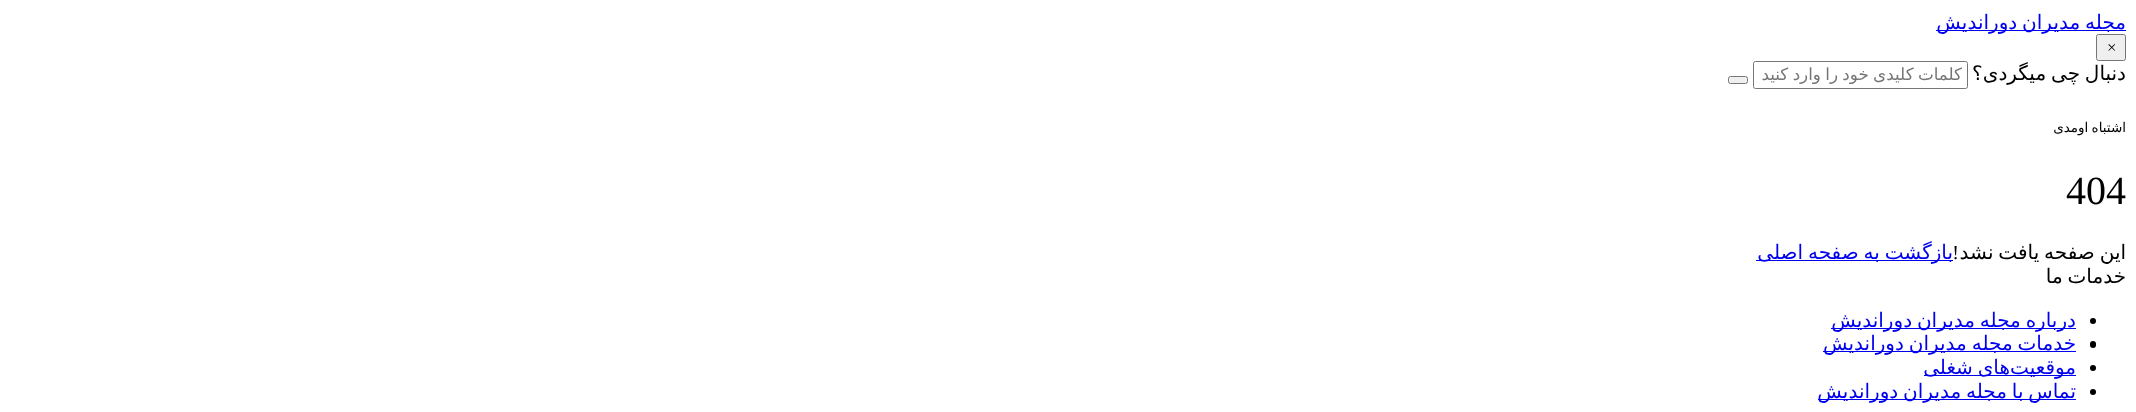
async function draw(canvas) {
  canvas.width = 2136;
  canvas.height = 412;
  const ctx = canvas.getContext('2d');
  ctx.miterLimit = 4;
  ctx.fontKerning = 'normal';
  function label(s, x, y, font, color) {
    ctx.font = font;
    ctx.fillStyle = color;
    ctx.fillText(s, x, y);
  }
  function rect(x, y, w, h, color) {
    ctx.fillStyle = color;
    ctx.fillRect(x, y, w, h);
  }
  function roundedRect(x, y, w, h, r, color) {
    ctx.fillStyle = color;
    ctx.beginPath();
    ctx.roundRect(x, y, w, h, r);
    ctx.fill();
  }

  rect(0, 0, 2136, 412, '#fff');
  rect(1936, 30, 190, 1, '#00e');
  ctx.wordSpacing = '-1.5px';
  ctx.direction = 'rtl';
  label('مجله مدیران دوراندیش', 2126, 29, '20px DejaVu Sans', '#00e');
  ctx.fillStyle = '#efefef';
  ctx.beginPath();
  ctx.roundRect(2096.5, 34.5, 29, 26, 2);
  ctx.fill();
  ctx.strokeStyle = '#767676';
  ctx.stroke();
  ctx.wordSpacing = '0px';
  ctx.direction = 'ltr';
  label('×', 2107, 53, '16.75px Liberation Serif', '#000');
  ctx.wordSpacing = '-1.5px';
  ctx.direction = 'rtl';
  label('دنبال چی میگردی؟', 2126, 80, '20px DejaVu Sans', '#000');
  ctx.beginPath();
  ctx.roundRect(1753.5, 61.5, 214, 27, 2);
  ctx.stroke();
  ctx.wordSpacing = '-1px';
  label('کلمات کلیدی خود را وارد کنید', 1962, 80, '16.75px DejaVu Sans', '#757575');
  ctx.fillStyle = '#efefef';
  ctx.beginPath();
  ctx.roundRect(1728.5, 76.5, 19, 7, 2);
  ctx.fill();
  ctx.stroke();
  label('اشتباه اومدی', 2126, 132, '13.5px DejaVu Sans', '#000');
  ctx.wordSpacing = '0px';
  ctx.direction = 'ltr';
  label('404', 2066, 204, '40px Liberation Serif', '#000');
  ctx.wordSpacing = '-1.5px';
  ctx.direction = 'rtl';
  label('این صفحه یافت نشد', 2126, 259, '20px DejaVu Sans', '#000');
  ctx.wordSpacing = '0px';
  label('!', 1959, 259, '20px Liberation Serif', '#000');
  rect(1756, 260, 197, 1, '#00e');
  ctx.wordSpacing = '-1.5px';
  label('بازگشت به صفحه اصلی', 1953, 259, '20px DejaVu Sans', '#00e');
  label('خدمات ما', 2126, 283, '20px DejaVu Sans', '#000');
  ctx.beginPath();
  ctx.arc(2093, 321, 3, 0, 2 * Math.PI);
  ctx.fill();
  rect(1831, 328, 245, 1, '#00e');
  label('درباره مجله مدیران دوراندیش', 2076, 327, '20px DejaVu Sans', '#00e');
  roundedRect(2090, 341, 6, 7, 3, '#000');
  rect(1823, 351, 253, 1, '#00e');
  label('خدمات مجله مدیران دوراندیش', 2076, 350, '20px DejaVu Sans', '#00e');
  ctx.fillStyle = '#000';
  ctx.beginPath();
  ctx.arc(2093, 368, 3, 0, 2 * Math.PI);
  ctx.fill();
  rect(1924, 375, 152, 1, '#00e');
  ctx.wordSpacing = '0px';
  label('موقعیت', 2076, 374, '20px DejaVu Sans', '#00e');
  ctx.wordSpacing = '-1.5px';
  label('های شغلی', 2010, 374, '20px DejaVu Sans', '#00e');
  ctx.fillStyle = '#000';
  ctx.beginPath();
  ctx.arc(2093, 392, 3, 0, 2 * Math.PI);
  ctx.fill();
  rect(1818, 399, 258, 1, '#00e');
  label('تماس با مجله مدیران دوراندیش', 2076, 398, '20px DejaVu Sans', '#00e');
}

draw(document.querySelector('canvas'));
